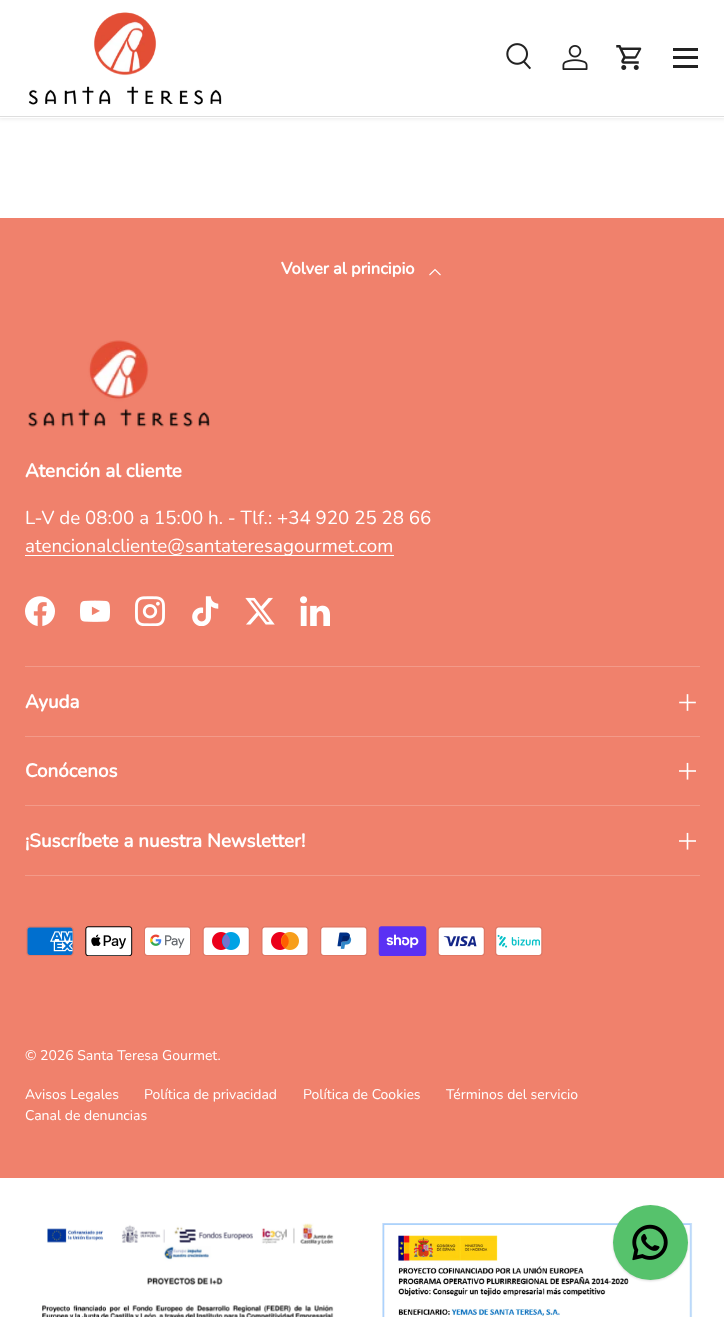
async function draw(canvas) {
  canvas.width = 724;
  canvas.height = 1317;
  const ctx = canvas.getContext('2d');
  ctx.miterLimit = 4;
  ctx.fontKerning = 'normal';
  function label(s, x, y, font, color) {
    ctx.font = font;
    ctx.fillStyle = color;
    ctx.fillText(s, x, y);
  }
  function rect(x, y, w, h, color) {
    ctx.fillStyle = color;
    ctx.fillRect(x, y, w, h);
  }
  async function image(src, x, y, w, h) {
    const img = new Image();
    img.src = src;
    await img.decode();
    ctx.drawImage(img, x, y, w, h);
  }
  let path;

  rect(0, 0, 724, 1317, '#fff');
  ctx.fillStyle = '#00000014';
  ctx.filter = 'blur(2px)';
  ctx.beginPath();
  ctx.rect(-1, -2, 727, 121);
  ctx.fill();
  ctx.filter = 'none';
  rect(0, 0, 724, 118, '#fff');
  await image('assets/img1.png', 28, 12, 194, 93);
  await image('assets/img2.png', 506, 43, 25, 27);
  await image('assets/img3.png', 562, 45, 26, 25);
  await image('assets/img4.png', 616, 45, 26, 25);
  rect(673, 48, 25, 3, '#222');
  rect(673, 65, 25, 3, '#222');
  rect(673, 56, 25, 3, '#222');
  rect(0, 116, 724, 1, '#dedede');
  rect(0, 218, 724, 960, '#f0816c');
  label('Volver al principio', 281, 274, 'bold 16.5px Nunito', '#fff');
  path = new Path2D('M429.5 275L435 269.5L440.5 275');
  ctx.strokeStyle = '#fff';
  ctx.lineWidth = 1.1;
  ctx.stroke(path);
  await image('assets/img5.png', 28, 340, 182, 87);
  label('Atención al cliente', 25, 477, 'bold 18.75px Nunito', '#fff');
  label('L-V de 08:00 a 15:00 h. - Tlf.: +34 920 25 28 66', 25, 524, '18.75px Nunito', '#fff');
  rect(25, 555, 369, 1, '#fff');
  label('atencionalcliente@santateresagourmet.com', 25, 552, '18.75px Nunito', '#fff');
  await image('assets/img6.png', 25, 596, 30, 30);
  await image('assets/img7.png', 80, 600, 30, 22);
  await image('assets/img8.png', 135, 596, 30, 30);
  await image('assets/img9.png', 192, 596, 27, 30);
  await image('assets/img10.png', 245, 597, 30, 28);
  await image('assets/img11.png', 300, 596, 30, 30);
  rect(25, 666, 675, 1, '#f39a89');
  rect(25, 736, 675, 1, '#f39a89');
  label('Ayuda', 25, 708, 'bold 18.75px Nunito', '#fff');
  await image('assets/img12.png', 679, 694, 17, 17);
  rect(25, 805, 675, 1, '#f39a89');
  label('Conócenos', 25, 777, 'bold 18.75px Nunito', '#fff');
  await image('assets/img13.png', 679, 762, 17, 18);
  rect(25, 875, 675, 1, '#f39a89');
  label('¡Suscríbete a nuestra Newsletter!', 25, 847, 'bold 18.75px Nunito', '#fff');
  await image('assets/img13.png', 679, 832, 17, 18);
  await image('assets/img14.png', 26, 926, 48, 30);
  await image('assets/img15.png', 85, 926, 48, 30);
  await image('assets/img16.png', 144, 926, 47, 30);
  await image('assets/img17.png', 202, 926, 48, 30);
  await image('assets/img18.png', 261, 926, 48, 30);
  await image('assets/img19.png', 320, 926, 48, 30);
  await image('assets/img20.png', 378, 926, 49, 30);
  await image('assets/img21.png', 437, 926, 48, 30);
  await image('assets/img22.png', 495, 926, 48, 30);
  label('© 2026 Santa Teresa Gourmet.', 25, 1060, '14px Nunito', '#fff');
  label('Avisos Legales', 25, 1099, '14px Nunito', '#fff');
  label('Política de privacidad', 144, 1099, '14px Nunito', '#fff');
  label('Política de Cookies', 303, 1099, '14px Nunito', '#fff');
  label('Términos del servicio', 446, 1099, '14px Nunito', '#fff');
  label('Canal de denuncias', 25, 1120, '14px Nunito', '#fff');
  await image('assets/img25.png', 382, 1223, 311, 94);
  ctx.fillStyle = '#00000026';
  ctx.filter = 'blur(1px)';
  ctx.beginPath();
  ctx.roundRect(613, 1206, 75, 75, 37.5);
  ctx.fill();
  ctx.filter = 'none';
  ctx.fillStyle = '#56c26c';
  ctx.beginPath();
  ctx.arc(650.5, 1242.5, 37.5, 0, 2 * Math.PI);
  ctx.fill();
  await image('assets/img23.png', 632, 1224, 36, 37);
  await image('assets/img24.png', 42, 1223, 292, 94);
}

draw(document.querySelector('canvas'));
